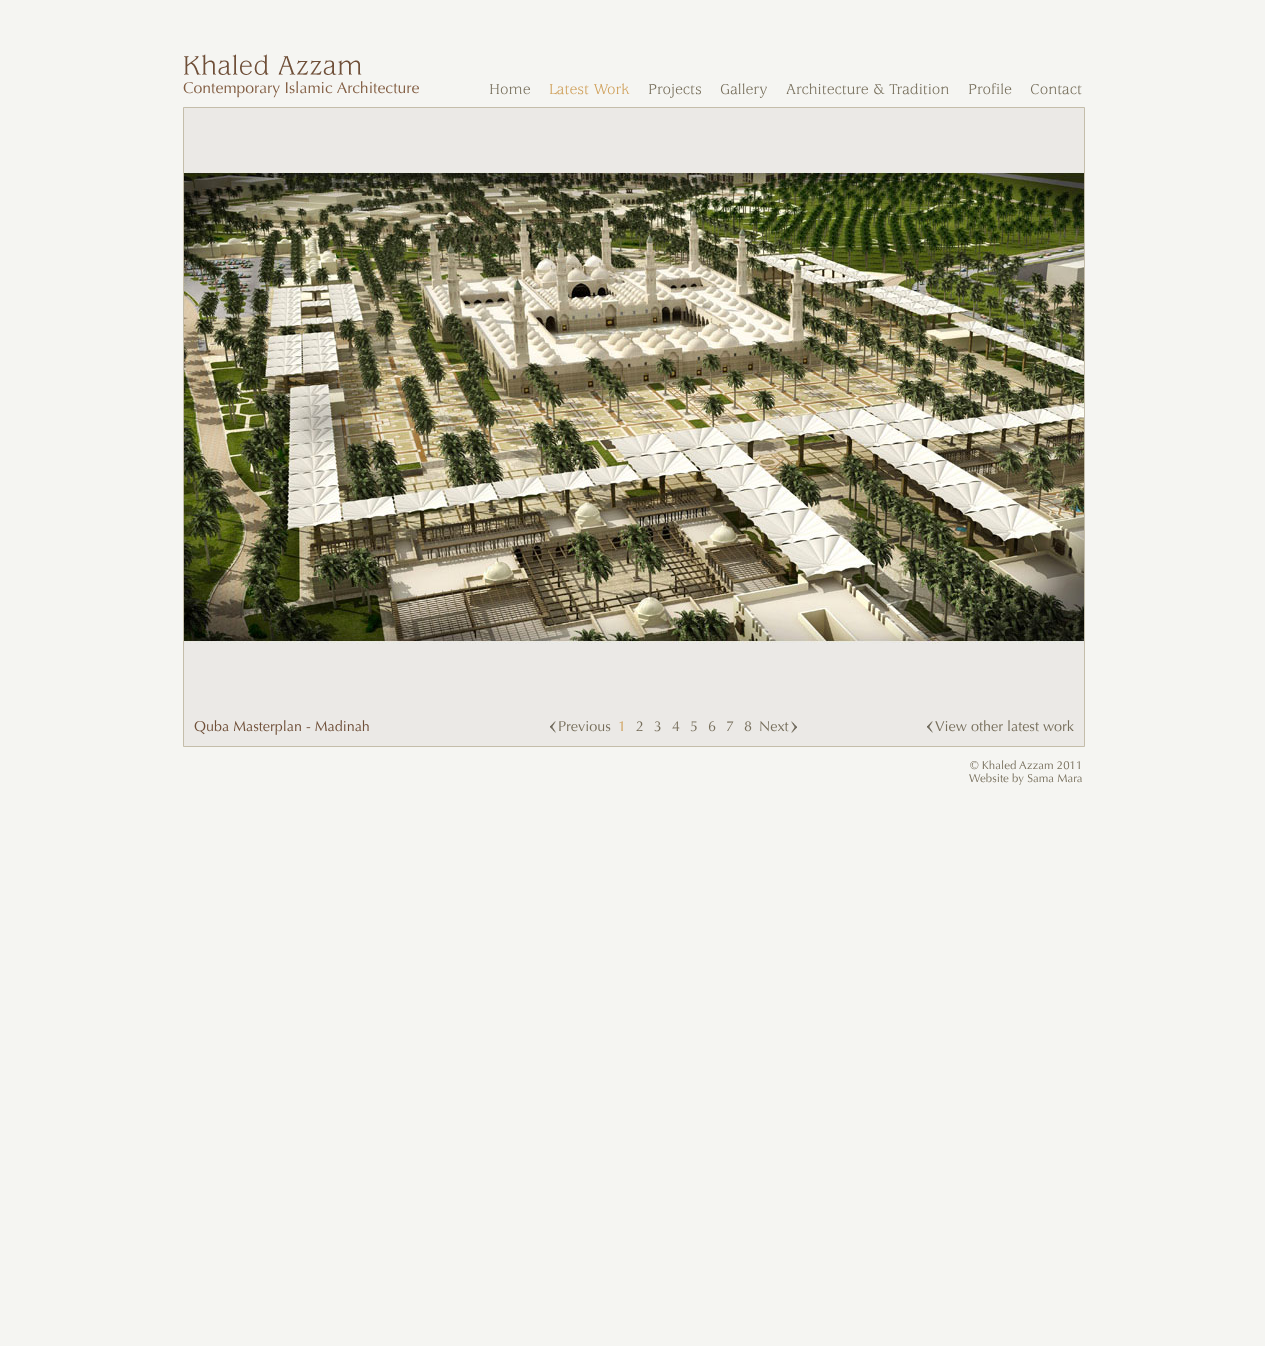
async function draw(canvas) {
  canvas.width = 1265;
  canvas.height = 1346;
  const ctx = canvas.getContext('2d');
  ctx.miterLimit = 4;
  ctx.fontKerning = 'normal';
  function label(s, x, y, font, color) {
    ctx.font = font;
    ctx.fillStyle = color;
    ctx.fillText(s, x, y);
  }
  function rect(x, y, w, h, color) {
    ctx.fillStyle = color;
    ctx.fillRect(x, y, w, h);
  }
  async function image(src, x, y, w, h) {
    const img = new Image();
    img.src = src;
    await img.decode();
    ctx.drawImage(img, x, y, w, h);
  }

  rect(0, 0, 1265, 1346, '#f5f5f2');
  await image('assets/img1.png', 184, 54, 178, 21);
  label('Contemporary Islamic Architecture', 183, 93, '15.8px Optima', '#825d42');
  label('Home', 489, 94, '15.8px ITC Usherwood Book', '#776f5c');
  label('Latest Work', 549, 94, '15.8px ITC Usherwood Book', '#cf9f58');
  label('Projects', 648, 94, '15.8px ITC Usherwood Book', '#776f5c');
  label('Gallery', 720, 94, '15.8px ITC Usherwood Book', '#776f5c');
  label('Architecture & Tradition', 786, 94, '15.8px ITC Usherwood Book', '#776f5c');
  label('Profile', 968, 94, '15.8px ITC Usherwood Book', '#776f5c');
  label('Contact', 1030, 94, '15.8px ITC Usherwood Book', '#776f5c');
  ctx.fillStyle = '#ebe9e6';
  ctx.beginPath();
  ctx.rect(183.5, 107.5, 901, 639);
  ctx.fill();
  ctx.strokeStyle = '#c4bdaa';
  ctx.stroke();
  await image('assets/img2.png', 184, 172, 900, 472);
  label('Quba Masterplan - Madinah', 194, 731, '14.4px Optima', '#6f4f38');
  await image('assets/img3.png', 550, 721, 6, 12);
  label('Previous', 558, 731, '14.4px Optima', '#776f5c');
  label('1', 618, 731, '14.4px Optima', '#cf9f58');
  label('2', 636, 731, '14.4px Optima', '#776f5c');
  label('3', 654, 731, '14.4px Optima', '#776f5c');
  label('4', 672, 731, '14.4px Optima', '#776f5c');
  label('5', 690, 731, '14.4px Optima', '#776f5c');
  label('6', 708, 731, '14.4px Optima', '#776f5c');
  label('7', 726, 731, '14.4px Optima', '#776f5c');
  label('8', 744, 731, '14.4px Optima', '#776f5c');
  label('Next', 759, 731, '14.4px Optima', '#776f5c');
  await image('assets/img4.png', 791, 721, 6, 12);
  await image('assets/img3.png', 927, 721, 6, 12);
  label('View other latest work', 935, 731, '14.4px Optima', '#776f5c');
  label('© Khaled Azzam 2011', 970, 769, '11.5px Optima', '#776f5c');
  label('Website by Sama Mara', 969, 782, '11.5px Optima', '#776f5c');
}

draw(document.querySelector('canvas'));
